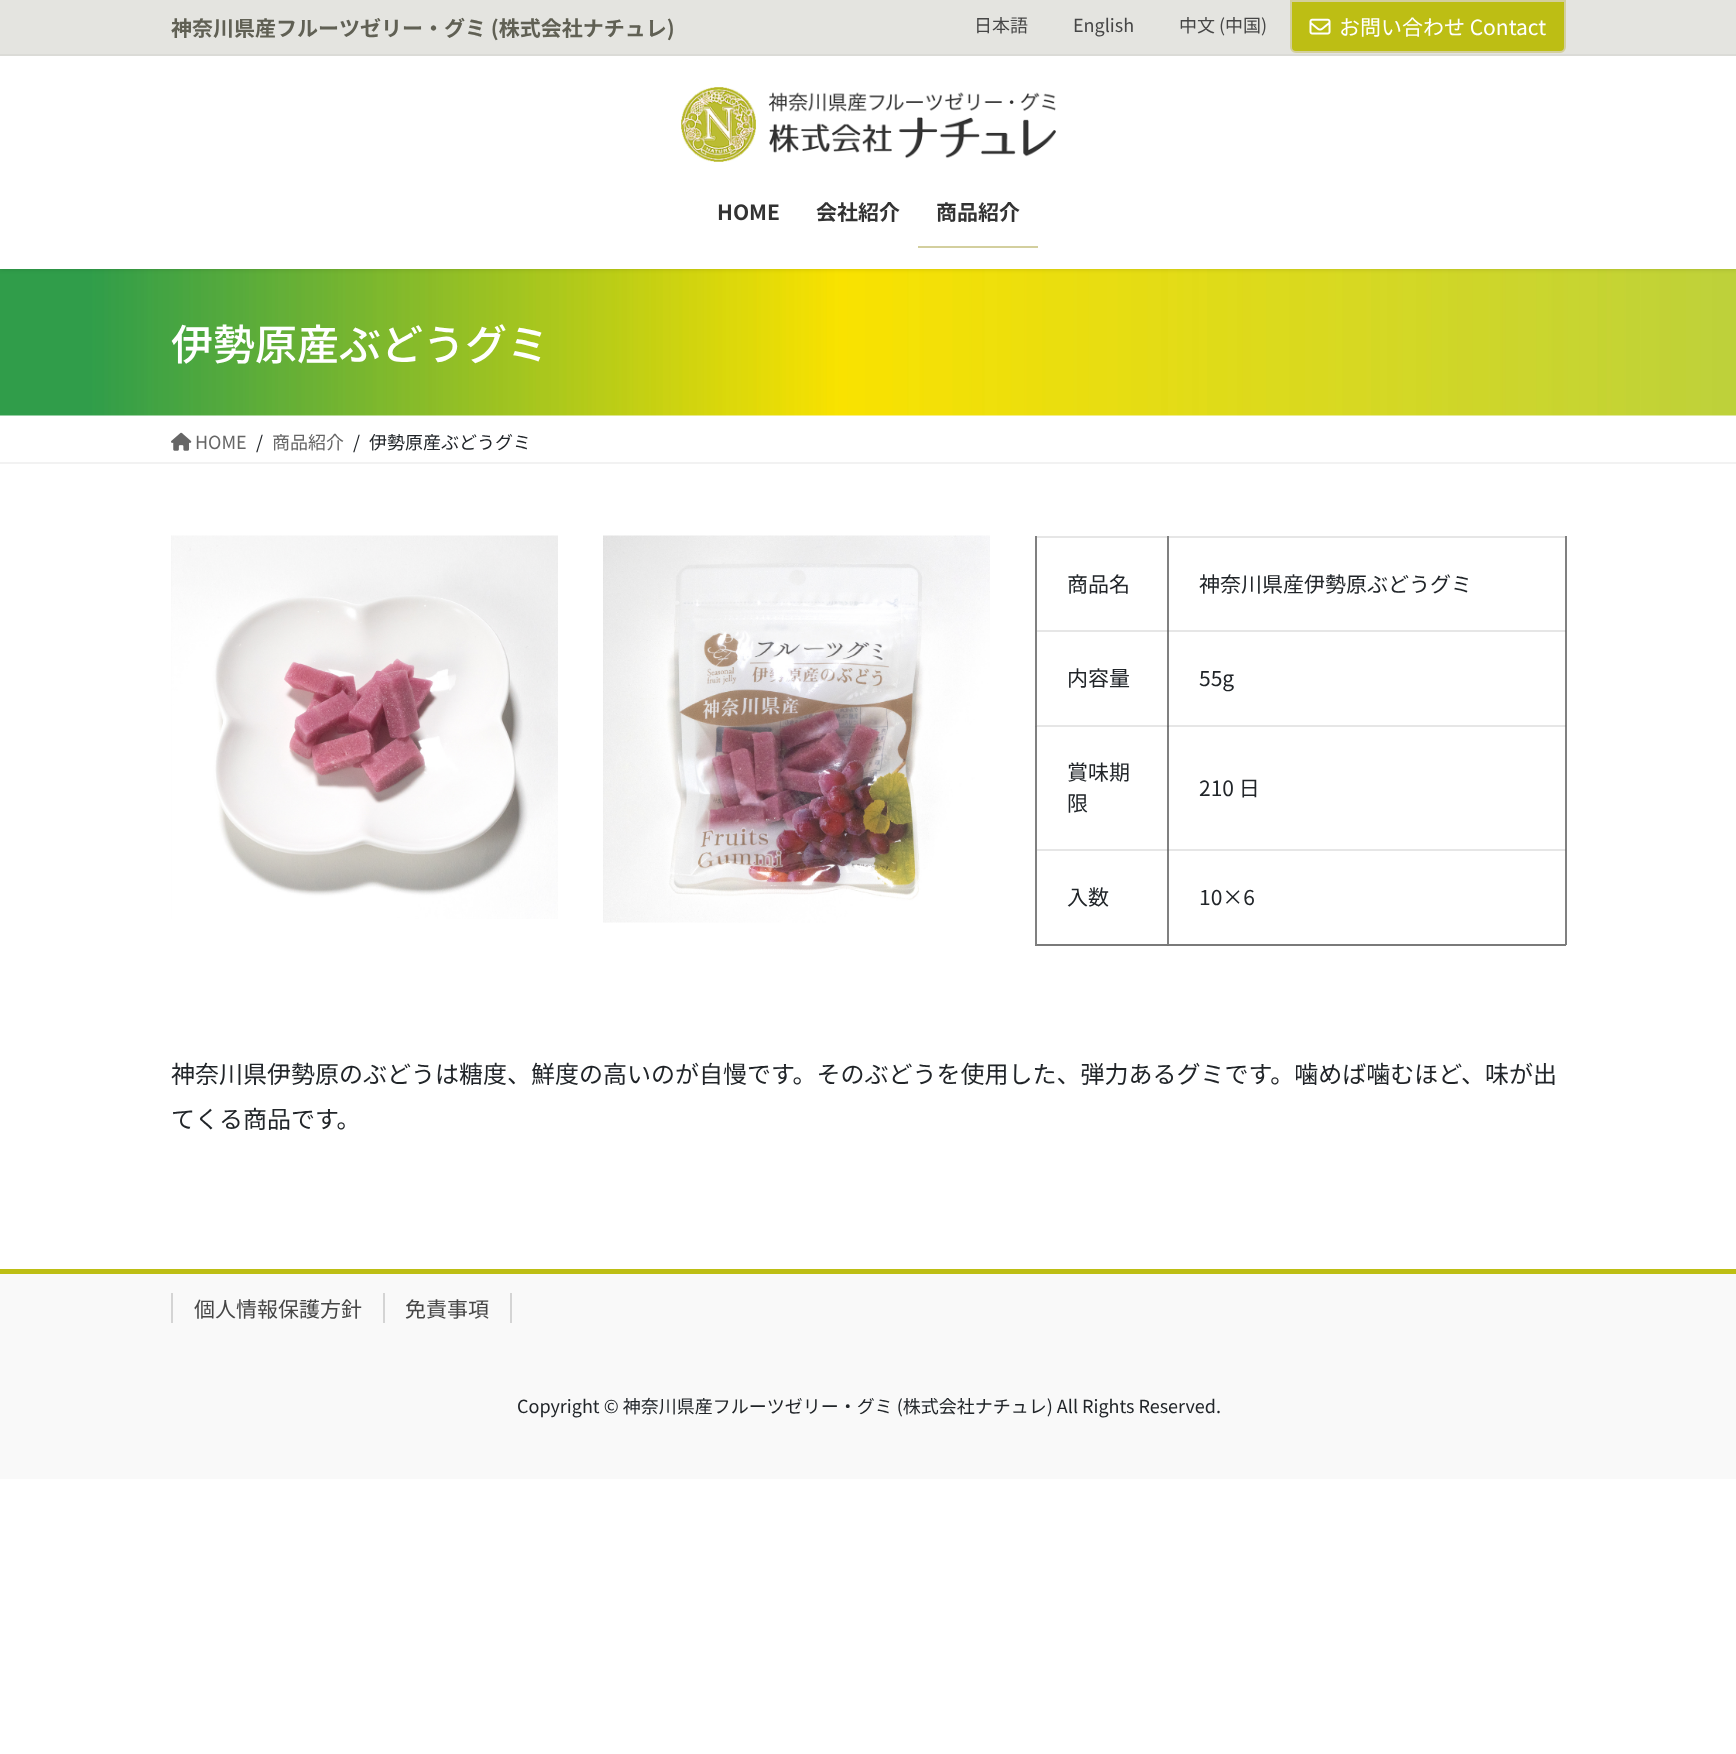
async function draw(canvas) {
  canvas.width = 1736;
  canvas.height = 1754;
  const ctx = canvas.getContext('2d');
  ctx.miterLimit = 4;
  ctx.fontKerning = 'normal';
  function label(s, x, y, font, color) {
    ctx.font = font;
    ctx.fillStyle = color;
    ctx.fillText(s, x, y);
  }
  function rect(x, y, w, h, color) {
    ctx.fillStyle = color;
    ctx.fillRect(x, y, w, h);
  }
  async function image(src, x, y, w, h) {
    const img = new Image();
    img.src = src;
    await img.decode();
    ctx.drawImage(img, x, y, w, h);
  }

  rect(0, 0, 1736, 1754, '#fff');
  rect(1035, 630, 531, 2, '#e6e6e6');
  rect(1035, 725, 531, 2, '#e6e6e6');
  rect(1035, 849, 531, 2, '#e6e6e6');
  await image('assets/img3.png', 0, 269, 1736, 147);
  ctx.fillStyle = '#0000001a';
  ctx.filter = 'blur(2px)';
  ctx.beginPath();
  ctx.rect(0, -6, 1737, 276);
  ctx.fill();
  ctx.filter = 'none';
  rect(0, 56, 1736, 213, '#fff');
  rect(0, 0, 1736, 54, '#e4e4e0');
  rect(0, 54, 1736, 2, '#dbdbd7');
  label('神奈川県産フルーツゼリー・グミ (株式会社ナチュレ)', 171, 36, 'bold 21px Noto Sans JP', '#606054');
  label('日本語', 974, 32, '18px Noto Sans JP', '#464646');
  label('English', 1073, 32, '18px Noto Sans JP', '#464646');
  label('中文 (中国)', 1179, 32, '18px Noto Sans JP', '#464646');
  ctx.fillStyle = '#bdbe14';
  ctx.beginPath();
  ctx.roundRect(1291, 1, 274, 51, [0, 0, 5, 5]);
  ctx.fill();
  ctx.strokeStyle = '#d3cf9e';
  ctx.lineWidth = 2;
  ctx.stroke();
  await image('assets/img1.png', 1309, 18, 22, 17);
  label('お問い合わせ Contact', 1339, 35, '21px Noto Sans JP', '#fff');
  await image('assets/img2.png', 681, 87, 375, 75);
  label('HOME', 717, 220, 'bold 21px Noto Sans JP', '#333');
  label('会社紹介', 816, 220, 'bold 21px Noto Sans JP', '#333');
  label('商品紹介', 936, 220, 'bold 21px Noto Sans JP', '#333');
  rect(918, 246, 120, 2, '#d3cf9e');
  label('伊勢原産ぶどうグミ', 171, 360, '500 42px Noto Sans JP', '#fff');
  rect(0, 462, 1736, 2, '#f2f2f2');
  await image('assets/img4.png', 171, 432, 21, 19);
  label('HOME', 195, 449, '18px Noto Sans JP', '#666');
  label('/', 256, 449, '18px Noto Sans JP', '#212529');
  label('商品紹介', 272, 449, '18px Noto Sans JP', '#666');
  label('/', 353, 449, '18px Noto Sans JP', '#212529');
  label('伊勢原産ぶどうグミ', 369, 449, '18px Noto Sans JP', '#212529');
  await image('assets/img5.png', 171, 535, 387, 384);
  await image('assets/img6.png', 603, 535, 387, 388);
  rect(1035, 536, 531, 2, '#e6e6e6');
  rect(1035, 944, 134, 2, '#7a7a7a');
  rect(1565, 725, 2, 220, '#808080');
  rect(1167, 944, 399, 2, '#7a7a7a');
  rect(1167, 536, 2, 409, '#808080');
  rect(1167, 630, 2, 2, '#7a7a7a');
  label('商品名', 1067, 592, '21px Noto Sans JP', '#212529');
  rect(1565, 725, 1, 2, '#7a7a7a');
  rect(1565, 536, 2, 190, '#808080');
  rect(1565, 630, 1, 2, '#7a7a7a');
  label('神奈川県産伊勢原ぶどうグミ', 1199, 592, '21px Noto Sans JP', '#212529');
  rect(1167, 725, 2, 1, '#7a7a7a');
  label('内容量', 1067, 686, '21px Noto Sans JP', '#212529');
  rect(1565, 725, 1, 1, '#7a7a7a');
  label('55g', 1199, 686, '21px Noto Sans JP', '#212529');
  rect(1167, 726, 2, 1, '#747474');
  rect(1167, 849, 2, 2, '#7a7a7a');
  rect(1035, 536, 2, 409, '#808080');
  rect(1035, 726, 2, 1, '#7a7a7a');
  label('賞味期', 1067, 780, '21px Noto Sans JP', '#212529');
  label('限', 1067, 811, '21px Noto Sans JP', '#212529');
  rect(1565, 849, 1, 2, '#7a7a7a');
  label('210 日', 1199, 796, '21px Noto Sans JP', '#212529');
  rect(1167, 944, 2, 1, '#7a7a7a');
  label('入数', 1067, 905, '21px Noto Sans JP', '#212529');
  rect(1167, 945, 2, 1, '#747474');
  label('10×6', 1199, 905, '21px Noto Sans JP', '#212529');
  label('神奈川県伊勢原のぶどうは糖度、鮮度の高いのが自慢です。そのぶどうを使用した、弾力あるグミです。噛めば噛むほど、味が出', 171, 1083, '24px Noto Sans JP', '#212529');
  label('てくる商品です。', 171, 1128, '24px Noto Sans JP', '#212529');
  rect(0, 1274, 1736, 205, '#f9f9f9');
  rect(0, 1269, 1736, 5, '#bdbe14');
  label('個人情報保護方針', 194, 1317, '21px Noto Sans JP', '#464646');
  rect(171, 1293, 2, 30, '#d4d4d4');
  label('免責事項', 405, 1317, '21px Noto Sans JP', '#464646');
  rect(510, 1293, 2, 30, '#d4d4d4');
  rect(383, 1293, 2, 30, '#d4d4d4');
  label('Copyright © 神奈川県産フルーツゼリー・グミ (株式会社ナチュレ) All Rights Reserved.', 517, 1413, '18px Noto Sans JP', '#212529');
}

draw(document.querySelector('canvas'));
